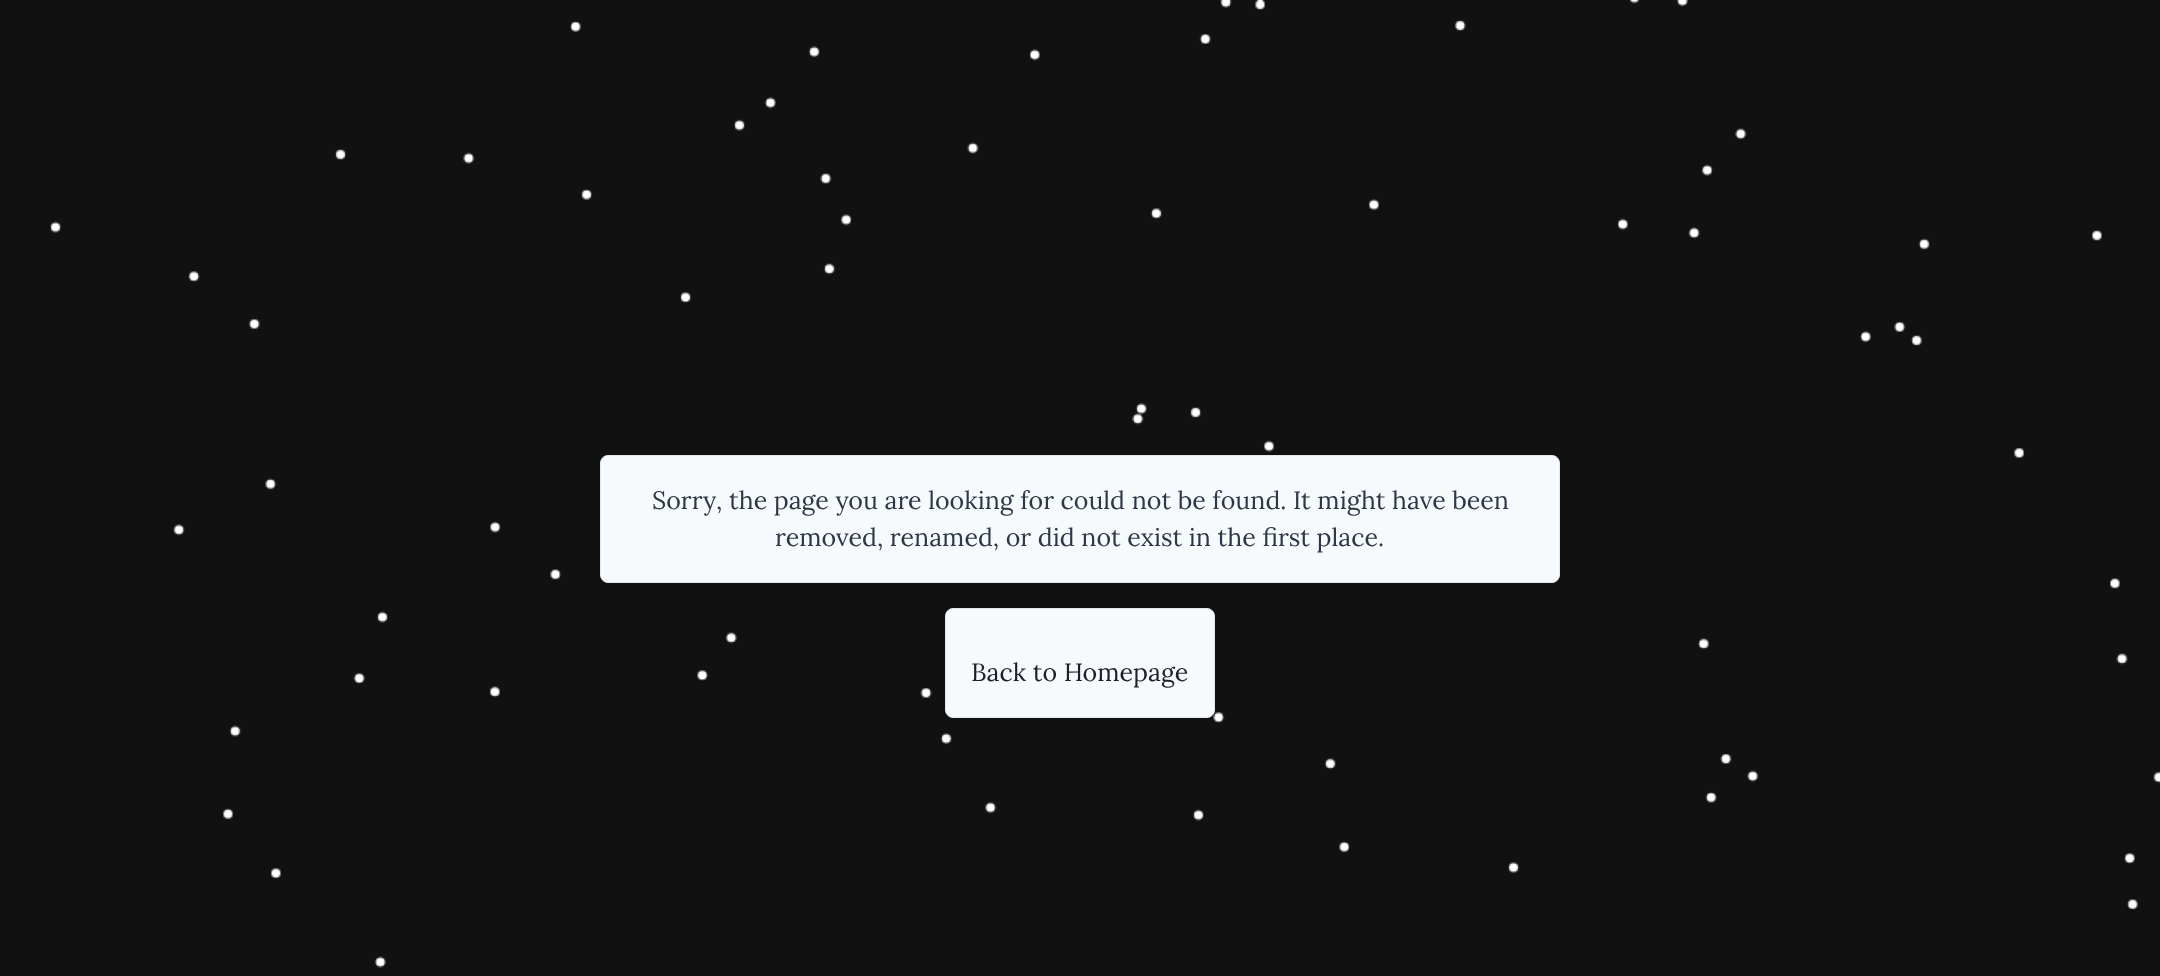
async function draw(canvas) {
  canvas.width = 2160;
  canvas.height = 976;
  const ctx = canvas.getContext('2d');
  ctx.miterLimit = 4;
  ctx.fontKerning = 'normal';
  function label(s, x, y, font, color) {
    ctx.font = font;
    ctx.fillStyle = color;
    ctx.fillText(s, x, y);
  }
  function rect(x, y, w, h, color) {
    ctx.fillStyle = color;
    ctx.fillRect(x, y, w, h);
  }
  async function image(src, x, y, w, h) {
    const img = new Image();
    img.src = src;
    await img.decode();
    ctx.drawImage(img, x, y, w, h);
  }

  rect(0, 0, 2160, 976, '#111');
  await image('assets/img1.png', 50, 0, 2110, 968);
  ctx.fillStyle = '#f7fafc';
  ctx.beginPath();
  ctx.roundRect(600.5, 455.5, 959, 127, 7.5);
  ctx.fill();
  ctx.strokeStyle = '#e2e8f0';
  ctx.stroke();
  label('Sorry, the page you are looking for could not be found. It might have been', 652, 509, '25px Lora', '#2d3748');
  label('removed, renamed, or did not exist in the first place.', 775, 546, '25px Lora', '#2d3748');
  ctx.fillStyle = '#f7fafc';
  ctx.beginPath();
  ctx.roundRect(945.5, 608.5, 269, 109, 7.5);
  ctx.fill();
  ctx.stroke();
  label('Back to Homepage', 971, 681, '25px Lora', '#1a202c');
}

draw(document.querySelector('canvas'));
